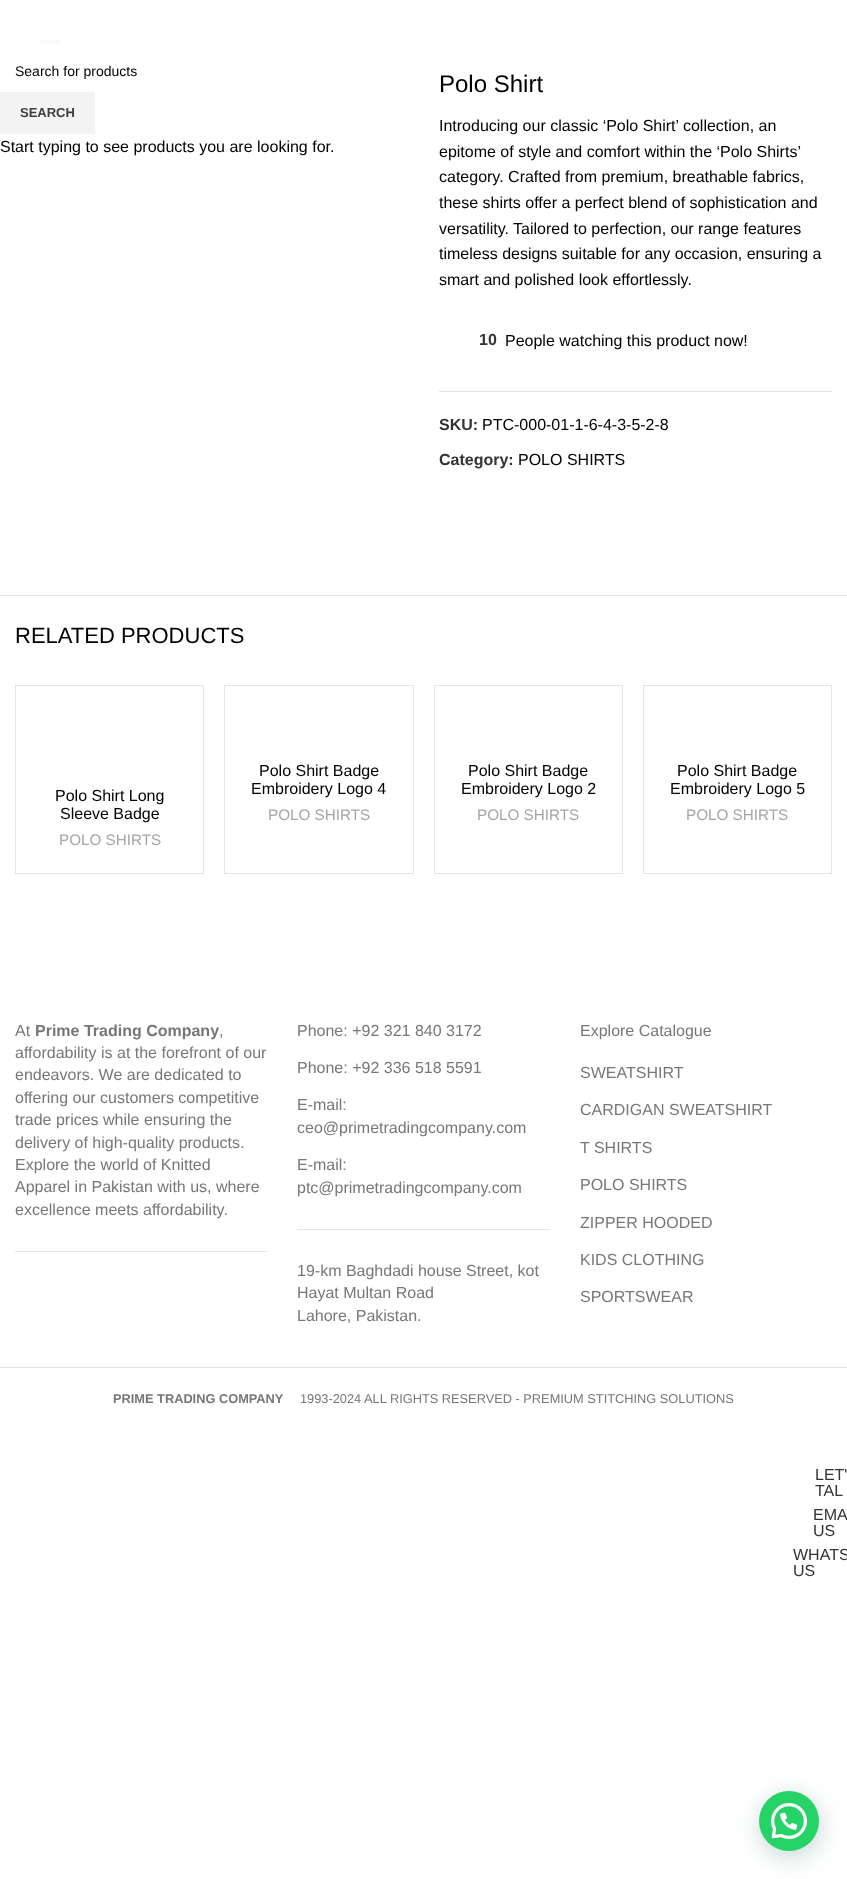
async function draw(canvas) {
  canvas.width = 847;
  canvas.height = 1879;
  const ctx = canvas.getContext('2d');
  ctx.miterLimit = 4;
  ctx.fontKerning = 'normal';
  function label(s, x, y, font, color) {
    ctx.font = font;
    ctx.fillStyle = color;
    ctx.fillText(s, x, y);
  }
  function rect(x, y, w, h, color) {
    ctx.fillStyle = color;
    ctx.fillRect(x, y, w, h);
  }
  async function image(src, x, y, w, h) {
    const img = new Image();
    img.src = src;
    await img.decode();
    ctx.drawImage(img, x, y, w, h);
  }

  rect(0, 0, 847, 1879, '#fff');
  label('Search for products', 15, 76, '14px Liberation Sans', '#000');
  rect(0, 92, 95, 42, '#f3f3f3');
  label('SEARCH', 20, 117, 'bold 13px Liberation Sans', '#3e3e3e');
  label('Start typing to see products you are looking for.', 0, 152, '16px Liberation Sans', '#000');
  ctx.fillStyle = '#00000014';
  ctx.filter = 'blur(2.5px)';
  ctx.beginPath();
  ctx.roundRect(30, 1, 40, 40, 20);
  ctx.fill();
  ctx.filter = 'none';
  ctx.fillStyle = '#fff';
  ctx.beginPath();
  ctx.arc(50, 21, 20, 0, 2 * Math.PI);
  ctx.fill();
  rect(27, 0, 46, 40, '#fff');
  label('Polo Shirt', 439, 92, '24px Liberation Sans', '#000');
  label('Introducing our classic ‘Polo Shirt’ collection, an', 439, 131, '16px Liberation Sans', '#000');
  label('epitome of style and comfort within the ‘Polo Shirts’', 439, 157, '16px Liberation Sans', '#000');
  label('category. Crafted from premium, breathable fabrics,', 439, 182, '16px Liberation Sans', '#000');
  label('these shirts offer a perfect blend of sophistication and', 439, 208, '16px Liberation Sans', '#000');
  label('versatility. Tailored to perfection, our range features', 439, 234, '16px Liberation Sans', '#000');
  label('timeless designs suitable for any occasion, ensuring a', 439, 259, '16px Liberation Sans', '#000');
  label('smart and polished look effortlessly.', 439, 285, '16px Liberation Sans', '#000');
  label('10', 479, 345, 'bold 16px Liberation Sans', '#333');
  label('People watching this product now!', 505, 346, '16px Liberation Sans', '#000');
  rect(439, 391, 393, 1, '#e4e4e4');
  label('SKU:', 439, 430, 'bold 16px Liberation Sans', '#333');
  label('PTC-000-01-1-6-4-3-5-2-8', 482, 430, '16px Liberation Sans', '#000');
  label('Category:', 439, 465, 'bold 16px Liberation Sans', '#333');
  label('POLO SHIRTS', 518, 465, '16px Liberation Sans', '#000');
  rect(0, 595, 847, 1, '#e4e4e4');
  label('RELATED PRODUCTS', 15, 643, '22px Liberation Sans', '#000');
  ctx.strokeStyle = '#e4e4e4';
  ctx.strokeRect(15.5, 685.5, 188, 188);
  label('Polo Shirt Long', 55, 801, '16px Liberation Sans', '#000');
  label('Sleeve Badge', 60, 819, '16px Liberation Sans', '#000');
  label('POLO SHIRTS', 59, 845, '15.25px Liberation Sans', '#a5a5a5');
  ctx.strokeRect(224.5, 685.5, 189, 188);
  label('Polo Shirt Badge', 259, 776, '16px Liberation Sans', '#000');
  label('Embroidery Logo 4', 251, 794, '16px Liberation Sans', '#000');
  label('POLO SHIRTS', 268, 820, '15.25px Liberation Sans', '#a5a5a5');
  ctx.strokeRect(434.5, 685.5, 188, 188);
  label('Polo Shirt Badge', 468, 776, '16px Liberation Sans', '#000');
  label('Embroidery Logo 2', 461, 794, '16px Liberation Sans', '#000');
  label('POLO SHIRTS', 477, 820, '15.25px Liberation Sans', '#a5a5a5');
  ctx.strokeRect(643.5, 685.5, 188, 188);
  label('Polo Shirt Badge', 677, 776, '16px Liberation Sans', '#000');
  label('Embroidery Logo 5', 670, 794, '16px Liberation Sans', '#000');
  label('POLO SHIRTS', 686, 820, '15.25px Liberation Sans', '#a5a5a5');
  rect(15, 1251, 252, 1, '#e4e4e4');
  label('At', 15, 1036, '16px Liberation Sans', '#777');
  label('Prime Trading Company', 35, 1036, 'bold 16px Liberation Sans', '#777');
  label(',', 219, 1036, '16px Liberation Sans', '#777');
  label('affordability is at the forefront of our', 15, 1058, '16px Liberation Sans', '#777');
  label('endeavors. We are dedicated to', 15, 1080, '16px Liberation Sans', '#777');
  label('offering our customers competitive', 15, 1103, '16px Liberation Sans', '#777');
  label('trade prices while ensuring the', 15, 1125, '16px Liberation Sans', '#777');
  label('delivery of high-quality products.', 15, 1148, '16px Liberation Sans', '#777');
  label('Explore the world of Knitted', 15, 1170, '16px Liberation Sans', '#777');
  label('Apparel in Pakistan with us, where', 15, 1192, '16px Liberation Sans', '#777');
  label('excellence meets affordability.', 15, 1215, '16px Liberation Sans', '#777');
  rect(297, 1229, 253, 1, '#e4e4e4');
  label('Phone: +92 321 840 3172', 297, 1036, '16px Liberation Sans', '#777');
  label('Phone: +92 336 518 5591', 297, 1073, '16px Liberation Sans', '#777');
  label('E-mail:', 297, 1110, '16px Liberation Sans', '#777');
  label('ceo@primetradingcompany.com', 297, 1133, '16px Liberation Sans', '#777');
  label('E-mail:', 297, 1170, '16px Liberation Sans', '#777');
  label('ptc@primetradingcompany.com', 297, 1193, '16px Liberation Sans', '#777');
  label('19-km Baghdadi house Street, kot', 297, 1276, '16px Liberation Sans', '#777');
  label('Hayat Multan Road', 297, 1298, '16px Liberation Sans', '#777');
  label('Lahore, Pakistan.', 297, 1321, '16px Liberation Sans', '#777');
  label('Explore Catalogue', 580, 1036, '16px Liberation Sans', '#777');
  label('SWEATSHIRT', 580, 1078, '16px Liberation Sans', '#777');
  label('CARDIGAN SWEATSHIRT', 580, 1115, '16px Liberation Sans', '#777');
  label('T SHIRTS', 580, 1153, '16px Liberation Sans', '#777');
  label('POLO SHIRTS', 580, 1190, '16px Liberation Sans', '#777');
  label('ZIPPER HOODED', 580, 1228, '16px Liberation Sans', '#777');
  label('KIDS CLOTHING', 580, 1265, '16px Liberation Sans', '#777');
  label('SPORTSWEAR', 580, 1302, '16px Liberation Sans', '#777');
  rect(0, 1367, 847, 1, '#e4e4e4');
  label('PRIME TRADING COMPANY', 113, 1403, 'bold 12.8px Liberation Sans', '#777');
  label('1993-2024 ALL RIGHTS RESERVED - PREMIUM STITCHING SOLUTIONS', 300, 1403, '12.8px Liberation Sans', '#777');
  label('LET\'', 815, 1480, '16px Liberation Sans', '#333');
  label('TAL', 815, 1496, '16px Liberation Sans', '#333');
  label('EMA', 813, 1520, '16px Liberation Sans', '#333');
  label('US', 813, 1536, '16px Liberation Sans', '#333');
  label('WHATS', 793, 1560, '16px Liberation Sans', '#333');
  label('US', 793, 1576, '16px Liberation Sans', '#333');
  ctx.fillStyle = '#075e543d';
  ctx.filter = 'blur(12px)';
  ctx.beginPath();
  ctx.roundRect(760, 1797, 60, 60, 30);
  ctx.fill();
  ctx.filter = 'none';
  ctx.fillStyle = '#25d366';
  ctx.beginPath();
  ctx.arc(789, 1821, 30, 0, 2 * Math.PI);
  ctx.fill();
  await image('assets/img1.png', 771, 1803, 36, 36);
}

draw(document.querySelector('canvas'));
